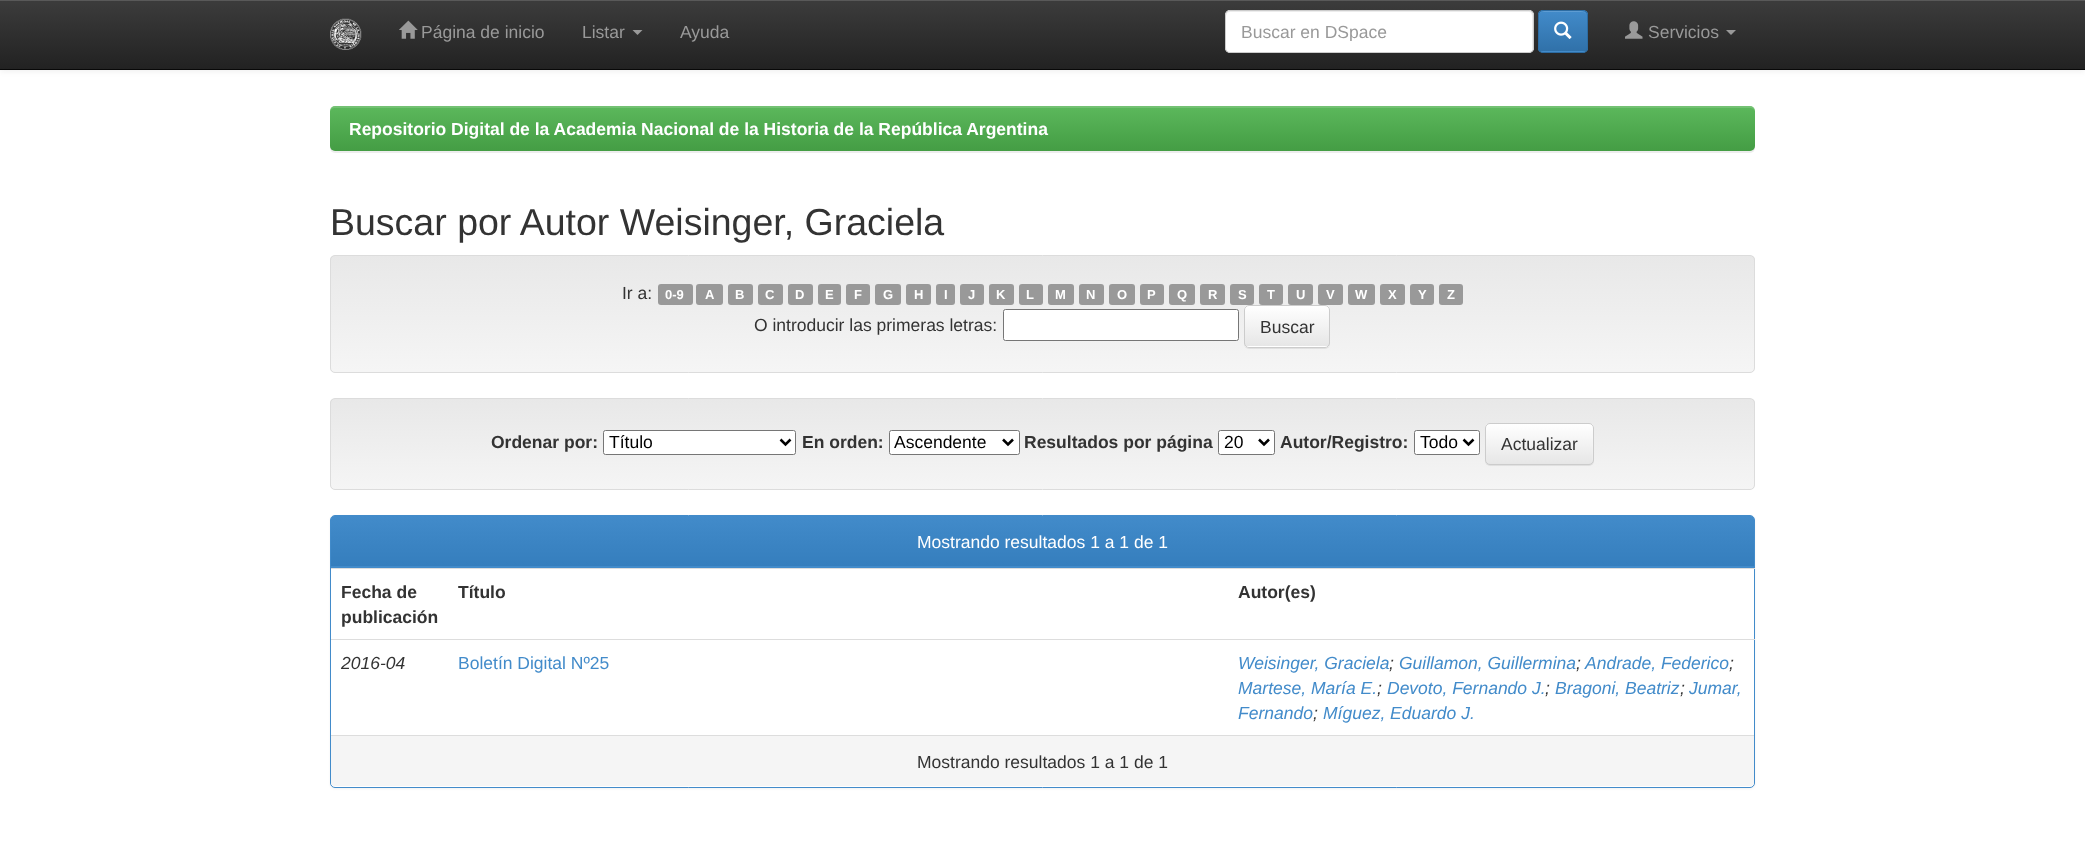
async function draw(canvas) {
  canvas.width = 2085;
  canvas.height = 848;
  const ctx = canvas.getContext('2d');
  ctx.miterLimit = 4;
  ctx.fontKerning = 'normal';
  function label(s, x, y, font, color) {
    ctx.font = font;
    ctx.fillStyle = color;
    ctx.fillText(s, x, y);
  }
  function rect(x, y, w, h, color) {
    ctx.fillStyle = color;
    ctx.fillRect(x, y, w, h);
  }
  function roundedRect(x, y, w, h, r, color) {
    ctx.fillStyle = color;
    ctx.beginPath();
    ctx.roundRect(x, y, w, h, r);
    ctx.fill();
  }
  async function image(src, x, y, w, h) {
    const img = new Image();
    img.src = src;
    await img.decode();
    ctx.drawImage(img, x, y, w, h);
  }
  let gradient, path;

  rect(0, 0, 2085, 848, '#fff');
  ctx.fillStyle = '#00000012';
  ctx.filter = 'blur(3px)';
  ctx.beginPath();
  ctx.rect(0, 1, 2085, 70);
  ctx.fill();
  ctx.filter = 'none';
  gradient = ctx.createLinearGradient(1043, 0, 1043, 69);
  gradient.addColorStop(0, '#3c3c3c');
  gradient.addColorStop(1, '#222');
  ctx.fillStyle = gradient;
  ctx.fillRect(0, 1, 2085, 68);
  rect(0, 0, 2085, 1, '#595959');
  rect(0, 69, 2085, 1, '#080808');
  await image('assets/img1.png', 330, 18, 32, 32);
  await image('assets/img2.png', 399, 20, 19, 19);
  label('Página de inicio', 421, 38, '17.5px Liberation Sans', '#999');
  label('Listar', 582, 38, '17.5px Liberation Sans', '#999');
  path = new Path2D('M632.5 30H642.5L637.5 35Z');
  ctx.fill(path);
  label('Ayuda', 680, 38, '17.5px Liberation Sans', '#999');
  roundedRect(1225, 10, 309, 43, 5, '#fff');
  ctx.fillStyle = '#ececec';
  path = new Path2D('M1230 12H1529C1531 12 1532 14 1532 16V50C1533 49 1533 48 1533 47V15C1533 13 1531 11 1529 11H1230C1228 11 1226 13 1226 15V16C1226 14 1228 12 1230 12Z');
  ctx.fill(path);
  ctx.beginPath();
  ctx.roundRect(1225.5, 10.5, 308, 42, 4.5);
  ctx.strokeStyle = '#ccc';
  ctx.stroke();
  ctx.save();
  ctx.beginPath();
  ctx.rect(1241, 21, 277, 20);
  ctx.clip();
  label('Buscar en DSpace', 1241, 38, '17.5px Liberation Sans', '#999');
  ctx.restore();
  roundedRect(1538, 10, 50, 43, 5, '#428bca');
  ctx.save();
  ctx.beginPath();
  ctx.roundRect(1538, 10, 50, 43, 5);
  ctx.clip();
  gradient = ctx.createLinearGradient(1563, 11, 1563, 51);
  gradient.addColorStop(0, '#428bca');
  gradient.addColorStop(1, '#3071a9');
  ctx.fillStyle = gradient;
  ctx.fillRect(1538, 11, 50, 40);
  ctx.restore();
  ctx.fillStyle = '#5e9cd2';
  path = new Path2D('M1542 12H1582C1585 12 1586 14 1586 16C1586 10 1580 11 1576 11H1550C1545 11 1539 10 1539 16C1539 14 1540 12 1542 12Z');
  ctx.fill(path);
  ctx.beginPath();
  ctx.roundRect(1538.5, 10.5, 49, 42, 4.5);
  ctx.strokeStyle = '#2d6ca2';
  ctx.stroke();
  await image('assets/img3.png', 1554, 21, 18, 18);
  await image('assets/img4.png', 1625, 21, 18, 18);
  label('Servicios', 1648, 38, '17.5px Liberation Sans', '#999');
  path = new Path2D('M1726 30H1736L1731 35Z');
  ctx.fill(path);
  ctx.fillStyle = '#00000012';
  ctx.filter = 'blur(0.5px)';
  ctx.beginPath();
  ctx.roundRect(330, 108, 1425, 45, 5);
  ctx.fill();
  ctx.filter = 'none';
  gradient = ctx.createLinearGradient(1043, 106, 1043, 151);
  gradient.addColorStop(0, '#5cb85c');
  gradient.addColorStop(1, '#449d44');
  ctx.fillStyle = gradient;
  ctx.beginPath();
  ctx.roundRect(330, 106, 1425, 45, 5);
  ctx.fill();
  ctx.fillStyle = '#ffffff26';
  path = new Path2D('M335 108H1750C1753 108 1755 110 1755 112C1755 109 1753 106 1750 106H335C332 106 330 109 330 112C330 110 332 108 335 108Z');
  ctx.fill(path);
  label('Repositorio Digital de la Academia Nacional de la Historia de la República Argentina', 349, 135, 'bold 17.5px Liberation Sans', '#fff');
  label('Buscar por Autor Weisinger, Graciela', 330, 235, '37.5px Liberation Sans', '#333');
  roundedRect(330, 255, 1425, 118, 5, '#f5f5f5');
  ctx.save();
  ctx.beginPath();
  ctx.roundRect(330, 255, 1425, 118, 5);
  ctx.clip();
  gradient = ctx.createLinearGradient(1043, 256, 1043, 371);
  gradient.addColorStop(0, '#e8e8e8');
  gradient.addColorStop(1, '#f5f5f5');
  ctx.fillStyle = gradient;
  ctx.fillRect(330, 256, 1425, 115);
  ctx.restore();
  ctx.beginPath();
  ctx.roundRect(330.5, 255.5, 1424, 117, 4.5);
  ctx.strokeStyle = '#dcdcdc';
  ctx.stroke();
  label('Ir a:', 622, 299, '17.5px Liberation Sans', '#333');
  roundedRect(658, 284, 35, 21, 3, '#999');
  label('0-9', 665, 299, 'bold 13px Liberation Sans', '#fff');
  roundedRect(696, 284, 27, 21, 3, '#999');
  label('A', 705, 299, 'bold 13px Liberation Sans', '#fff');
  roundedRect(728, 284, 25, 21, 3, '#999');
  label('B', 735, 299, 'bold 13px Liberation Sans', '#fff');
  roundedRect(758, 284, 25, 21, 3, '#999');
  label('C', 765, 299, 'bold 13px Liberation Sans', '#fff');
  roundedRect(788, 284, 25, 21, 3, '#999');
  label('D', 795, 299, 'bold 13px Liberation Sans', '#fff');
  roundedRect(818, 284, 23, 21, 3, '#999');
  label('E', 825, 299, 'bold 13px Liberation Sans', '#fff');
  roundedRect(846, 284, 24, 21, 3, '#999');
  label('F', 854, 299, 'bold 13px Liberation Sans', '#fff');
  roundedRect(875, 284, 26, 21, 3, '#999');
  label('G', 883, 299, 'bold 13px Liberation Sans', '#fff');
  roundedRect(906, 284, 25, 21, 3, '#999');
  label('H', 914, 299, 'bold 13px Liberation Sans', '#fff');
  roundedRect(936, 284, 19, 21, 3, '#999');
  label('I', 944, 299, 'bold 13px Liberation Sans', '#fff');
  roundedRect(960, 284, 24, 21, 3, '#999');
  label('J', 968, 299, 'bold 13px Liberation Sans', '#fff');
  roundedRect(989, 284, 25, 21, 3, '#999');
  label('K', 996, 299, 'bold 13px Liberation Sans', '#fff');
  roundedRect(1019, 284, 24, 21, 3, '#999');
  label('L', 1026, 299, 'bold 13px Liberation Sans', '#fff');
  roundedRect(1048, 284, 26, 21, 3, '#999');
  label('M', 1055, 299, 'bold 13px Liberation Sans', '#fff');
  roundedRect(1079, 284, 25, 21, 3, '#999');
  label('N', 1086, 299, 'bold 13px Liberation Sans', '#fff');
  roundedRect(1109, 284, 26, 21, 3, '#999');
  label('O', 1117, 299, 'bold 13px Liberation Sans', '#fff');
  roundedRect(1140, 284, 24, 21, 3, '#999');
  label('P', 1147, 299, 'bold 13px Liberation Sans', '#fff');
  roundedRect(1169, 284, 26, 21, 3, '#999');
  label('Q', 1177, 299, 'bold 13px Liberation Sans', '#fff');
  roundedRect(1200, 284, 25, 21, 3, '#999');
  label('R', 1208, 299, 'bold 13px Liberation Sans', '#fff');
  roundedRect(1230, 284, 24, 21, 3, '#999');
  label('S', 1238, 299, 'bold 13px Liberation Sans', '#fff');
  roundedRect(1259, 284, 24, 21, 3, '#999');
  label('T', 1267, 299, 'bold 13px Liberation Sans', '#fff');
  roundedRect(1288, 284, 25, 21, 3, '#999');
  label('U', 1296, 299, 'bold 13px Liberation Sans', '#fff');
  roundedRect(1318, 284, 25, 21, 3, '#999');
  label('V', 1326, 299, 'bold 13px Liberation Sans', '#fff');
  roundedRect(1348, 284, 27, 21, 3, '#999');
  label('W', 1355, 299, 'bold 13px Liberation Sans', '#fff');
  roundedRect(1380, 284, 25, 21, 3, '#999');
  label('X', 1388, 299, 'bold 13px Liberation Sans', '#fff');
  roundedRect(1410, 284, 24, 21, 3, '#999');
  label('Y', 1418, 299, 'bold 13px Liberation Sans', '#fff');
  roundedRect(1439, 284, 24, 21, 3, '#999');
  label('Z', 1447, 299, 'bold 13px Liberation Sans', '#fff');
  label('O introducir las primeras letras:', 754, 331, '17.5px Liberation Sans', '#333');
  ctx.fillStyle = '#fff';
  ctx.beginPath();
  ctx.roundRect(1003.5, 309.5, 235, 31, 2);
  ctx.fill();
  ctx.strokeStyle = '#767676';
  ctx.stroke();
  ctx.fillStyle = '#00000012';
  ctx.filter = 'blur(0.5px)';
  ctx.beginPath();
  ctx.roundRect(1244, 306, 86, 43, 5);
  ctx.fill();
  ctx.filter = 'none';
  roundedRect(1244, 305, 86, 43, 5, '#fff');
  ctx.save();
  ctx.beginPath();
  ctx.roundRect(1244, 305, 86, 43, 5);
  ctx.clip();
  gradient = ctx.createLinearGradient(1287, 306, 1287, 346);
  gradient.addColorStop(0, '#fff');
  gradient.addColorStop(1, '#e6e6e6');
  ctx.fillStyle = gradient;
  ctx.fillRect(1244, 306, 86, 40);
  ctx.restore();
  ctx.beginPath();
  ctx.roundRect(1244.5, 305.5, 85, 42, 4.5);
  ctx.strokeStyle = '#ccc';
  ctx.stroke();
  label('Buscar', 1260, 333, '17.5px Liberation Sans', '#333');
  ctx.save();
  ctx.beginPath();
  ctx.roundRect(330, 398, 1425, 92, 5);
  ctx.clip();
  gradient = ctx.createLinearGradient(1043, 399, 1043, 489);
  gradient.addColorStop(0, '#e8e8e8');
  gradient.addColorStop(1, '#f5f5f5');
  ctx.fillStyle = gradient;
  ctx.fillRect(330, 399, 1425, 90);
  ctx.restore();
  ctx.beginPath();
  ctx.roundRect(330.5, 398.5, 1424, 91, 4.5);
  ctx.strokeStyle = '#dcdcdc';
  ctx.stroke();
  label('Ordenar por:', 491, 448, 'bold 17.5px Liberation Sans', '#333');
  ctx.fillStyle = '#fff';
  ctx.beginPath();
  ctx.roundRect(603.5, 430.5, 192, 24, 2);
  ctx.fill();
  ctx.strokeStyle = '#767676';
  ctx.stroke();
  path = new Path2D('M780.5 439.5L785.5 444.5L790.5 439.5');
  ctx.strokeStyle = '#000';
  ctx.lineWidth = 2.5;
  ctx.stroke(path);
  label('Título', 609, 448, '17.5px Liberation Sans', '#000');
  label('En orden:', 802, 448, 'bold 17.5px Liberation Sans', '#333');
  ctx.fillStyle = '#fff';
  ctx.beginPath();
  ctx.roundRect(889.5, 430.5, 130, 24, 2);
  ctx.fill();
  ctx.strokeStyle = '#767676';
  ctx.lineWidth = 1;
  ctx.stroke();
  path = new Path2D('M1003 439.5L1008 444.5L1013 439.5');
  ctx.strokeStyle = '#000';
  ctx.lineWidth = 2.5;
  ctx.stroke(path);
  label('Ascendente', 894, 448, '17.5px Liberation Sans', '#000');
  label('Resultados por página', 1024, 448, 'bold 17.5px Liberation Sans', '#333');
  ctx.fillStyle = '#fff';
  ctx.beginPath();
  ctx.roundRect(1218.5, 430.5, 56, 24, 2);
  ctx.fill();
  ctx.strokeStyle = '#767676';
  ctx.lineWidth = 1;
  ctx.stroke();
  path = new Path2D('M1259 439.5L1264 444.5L1269 439.5');
  ctx.strokeStyle = '#000';
  ctx.lineWidth = 2.5;
  ctx.stroke(path);
  label('20', 1224, 448, '17.5px Liberation Sans', '#000');
  label('Autor/Registro:', 1280, 448, 'bold 17.5px Liberation Sans', '#333');
  ctx.fillStyle = '#fff';
  ctx.beginPath();
  ctx.roundRect(1414.5, 430.5, 65, 24, 2);
  ctx.fill();
  ctx.strokeStyle = '#767676';
  ctx.lineWidth = 1;
  ctx.stroke();
  path = new Path2D('M1463.5 439.5L1468.5 444.5L1473.5 439.5');
  ctx.strokeStyle = '#000';
  ctx.lineWidth = 2.5;
  ctx.stroke(path);
  label('Todo', 1420, 448, '17.5px Liberation Sans', '#000');
  ctx.fillStyle = '#00000012';
  ctx.filter = 'blur(0.5px)';
  ctx.beginPath();
  ctx.roundRect(1485, 424, 109, 42, 5);
  ctx.fill();
  ctx.filter = 'none';
  ctx.save();
  ctx.beginPath();
  ctx.roundRect(1485, 423, 109, 42, 5);
  ctx.clip();
  gradient = ctx.createLinearGradient(1539, 424, 1539, 464);
  gradient.addColorStop(0, '#fff');
  gradient.addColorStop(1, '#e6e6e6');
  ctx.fillStyle = gradient;
  ctx.fillRect(1485, 424, 109, 40);
  ctx.restore();
  ctx.fillStyle = '#ffffff26';
  path = new Path2D('M1490 425H1589C1594 425 1592 438 1592 440V463C1592 462 1593 461 1593 460V428C1593 426 1591 424 1589 424H1490C1488 424 1486 426 1486 428V429C1486 427 1488 425 1490 425Z');
  ctx.fill(path);
  ctx.beginPath();
  ctx.roundRect(1485.5, 423.5, 108, 41, 4.5);
  ctx.strokeStyle = '#ccc';
  ctx.lineWidth = 1;
  ctx.stroke();
  label('Actualizar', 1501, 450, '17.5px Liberation Sans', '#333');
  ctx.fillStyle = '#0000000d';
  ctx.filter = 'blur(1px)';
  ctx.beginPath();
  ctx.roundRect(330, 516, 1425, 273, 5);
  ctx.fill();
  ctx.filter = 'none';
  ctx.fillStyle = '#fff';
  ctx.beginPath();
  ctx.roundRect(330.5, 515.5, 1424, 272, 4.5);
  ctx.fill();
  ctx.strokeStyle = '#428bca';
  ctx.stroke();
  ctx.fillStyle = '#428bca';
  ctx.beginPath();
  ctx.roundRect(331, 516, 1423, 52, [4, 4, 0, 0]);
  ctx.fill();
  gradient = ctx.createLinearGradient(1043, 516, 1043, 566);
  gradient.addColorStop(0, '#428bca');
  gradient.addColorStop(1, '#357ebd');
  ctx.fillStyle = gradient;
  ctx.beginPath();
  ctx.roundRect(331, 516, 1423, 50, [4, 4, 0, 0]);
  ctx.fill();
  label('Mostrando resultados 1 a 1 de 1', 917, 548, '17.5px Liberation Sans', '#fff');
  label('Fecha de', 341, 598, 'bold 17.5px Liberation Sans', '#333');
  label('publicación', 341, 623, 'bold 17.5px Liberation Sans', '#333');
  label('Título', 458, 598, 'bold 17.5px Liberation Sans', '#333');
  rect(331, 568, 1424, 1, '#ddd');
  label('Autor(es)', 1238, 598, 'bold 17.5px Liberation Sans', '#333');
  label('2016-04', 341, 669, 'italic 17.5px Liberation Sans', '#333');
  label('Boletín Digital Nº25', 458, 669, '17.5px Liberation Sans', '#428bca');
  rect(331, 639, 1424, 1, '#ddd');
  label('Weisinger, Graciela', 1238, 669, 'italic 17.5px Liberation Sans', '#428bca');
  label(';', 1389, 669, 'italic 17.5px Liberation Sans', '#333');
  label('Guillamon, Guillermina', 1399, 669, 'italic 17.5px Liberation Sans', '#428bca');
  label(';', 1576, 669, 'italic 17.5px Liberation Sans', '#333');
  label('Andrade, Federico', 1585, 669, 'italic 17.5px Liberation Sans', '#428bca');
  label(';', 1729, 669, 'italic 17.5px Liberation Sans', '#333');
  label('Martese, María E.', 1238, 694, 'italic 17.5px Liberation Sans', '#428bca');
  label(';', 1377, 694, 'italic 17.5px Liberation Sans', '#333');
  label('Devoto, Fernando J.', 1387, 694, 'italic 17.5px Liberation Sans', '#428bca');
  label(';', 1545, 694, 'italic 17.5px Liberation Sans', '#333');
  label('Bragoni, Beatriz', 1555, 694, 'italic 17.5px Liberation Sans', '#428bca');
  label(';', 1680, 694, 'italic 17.5px Liberation Sans', '#333');
  label('Jumar,', 1689, 694, 'italic 17.5px Liberation Sans', '#428bca');
  label('Fernando', 1238, 719, 'italic 17.5px Liberation Sans', '#428bca');
  label(';', 1313, 719, 'italic 17.5px Liberation Sans', '#333');
  label('Míguez, Eduardo J.', 1323, 719, 'italic 17.5px Liberation Sans', '#428bca');
  ctx.fillStyle = '#f5f5f5';
  ctx.beginPath();
  ctx.roundRect(331, 735, 1423, 51, [0, 0, 4, 4]);
  ctx.fill();
  rect(331, 735, 1423, 1, '#ddd');
  label('Mostrando resultados 1 a 1 de 1', 917, 768, '17.5px Liberation Sans', '#333');
}

draw(document.querySelector('canvas'));
